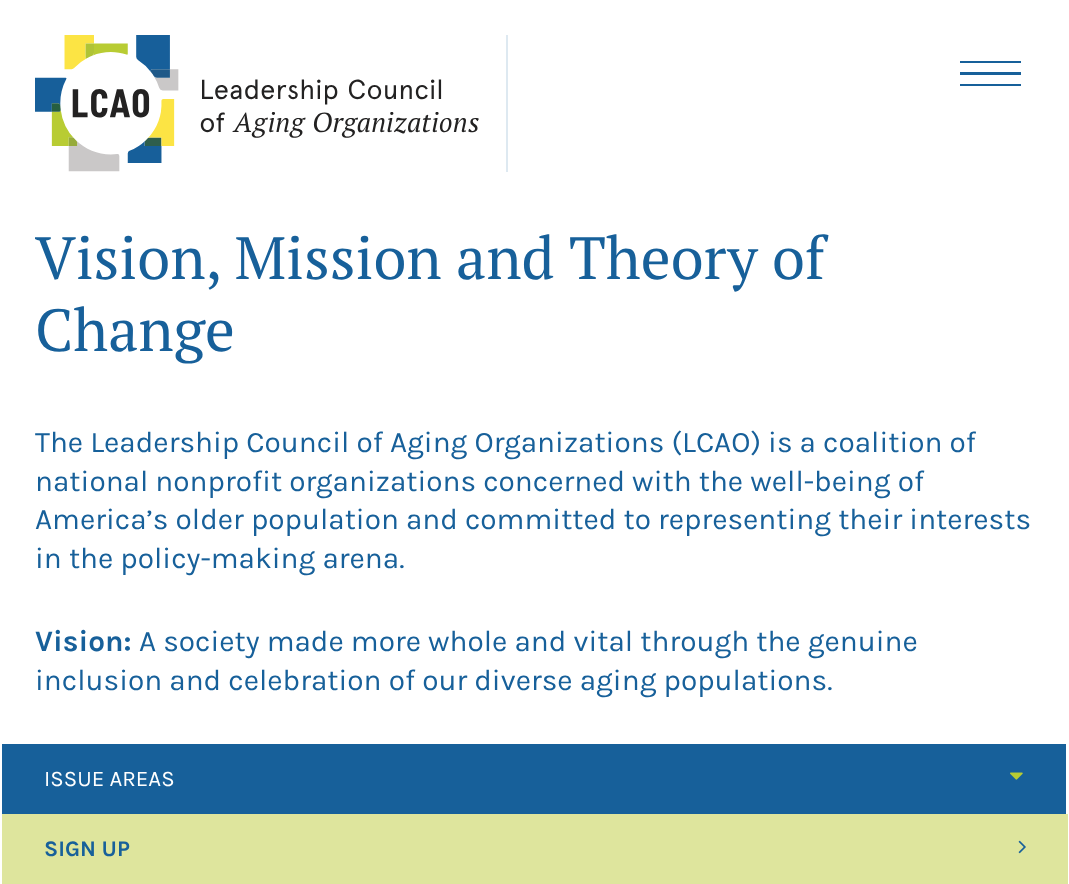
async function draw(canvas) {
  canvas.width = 1069;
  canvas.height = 884;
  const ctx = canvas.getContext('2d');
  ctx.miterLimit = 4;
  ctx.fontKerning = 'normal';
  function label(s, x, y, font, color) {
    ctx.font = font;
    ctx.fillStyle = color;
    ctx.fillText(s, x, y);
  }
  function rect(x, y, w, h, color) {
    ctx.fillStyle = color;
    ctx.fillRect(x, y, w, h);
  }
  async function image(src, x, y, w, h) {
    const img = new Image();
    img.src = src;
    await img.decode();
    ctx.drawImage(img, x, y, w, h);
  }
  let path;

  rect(0, 0, 1069, 884, '#fff');
  rect(506, 35, 2, 137, '#dee9f1');
  await image('assets/img1.png', 35, 35, 444, 137);
  ctx.fillStyle = '#17609a';
  path = new Path2D('M960 63V61H1021V63ZM960 75V72H1021V75ZM960 86V84H1021V86Z');
  ctx.fill(path);
  label('Vision, Mission and Theory of', 35, 279, '59.5px PT Serif', '#17609a');
  label('Change', 35, 351, '59.5px PT Serif', '#17609a');
  label('The Leadership Council of Aging Organizations (LCAO) is a coalition of', 35, 452, '29.75px Karla', '#17609a');
  label('national nonprofit organizations concerned with the well-being of', 35, 491, '29.75px Karla', '#17609a');
  label('America’s older population and committed to representing their interests', 35, 529, '29.75px Karla', '#17609a');
  label('in the policy-making arena.', 35, 568, '29.75px Karla', '#17609a');
  label('Vision:', 35, 651, 'bold 29.75px Karla', '#17609a');
  label('A society made more whole and vital through the genuine', 139, 651, '29.75px Karla', '#17609a');
  label('inclusion and celebration of our diverse aging populations.', 35, 690, '29.75px Karla', '#17609a');
  rect(2, 744, 1064, 70, '#17609a');
  label('ISSUE AREAS', 44, 786, '22.25px Karla', '#fff');
  await image('assets/img2.png', 1010, 772, 13, 8);
  rect(2, 814, 1066, 70, '#dee59d');
  label('SIGN UP', 44, 856, 'bold 22.25px Karla', '#17609a');
  await image('assets/img3.png', 1018, 840, 8, 14);
}

draw(document.querySelector('canvas'));
